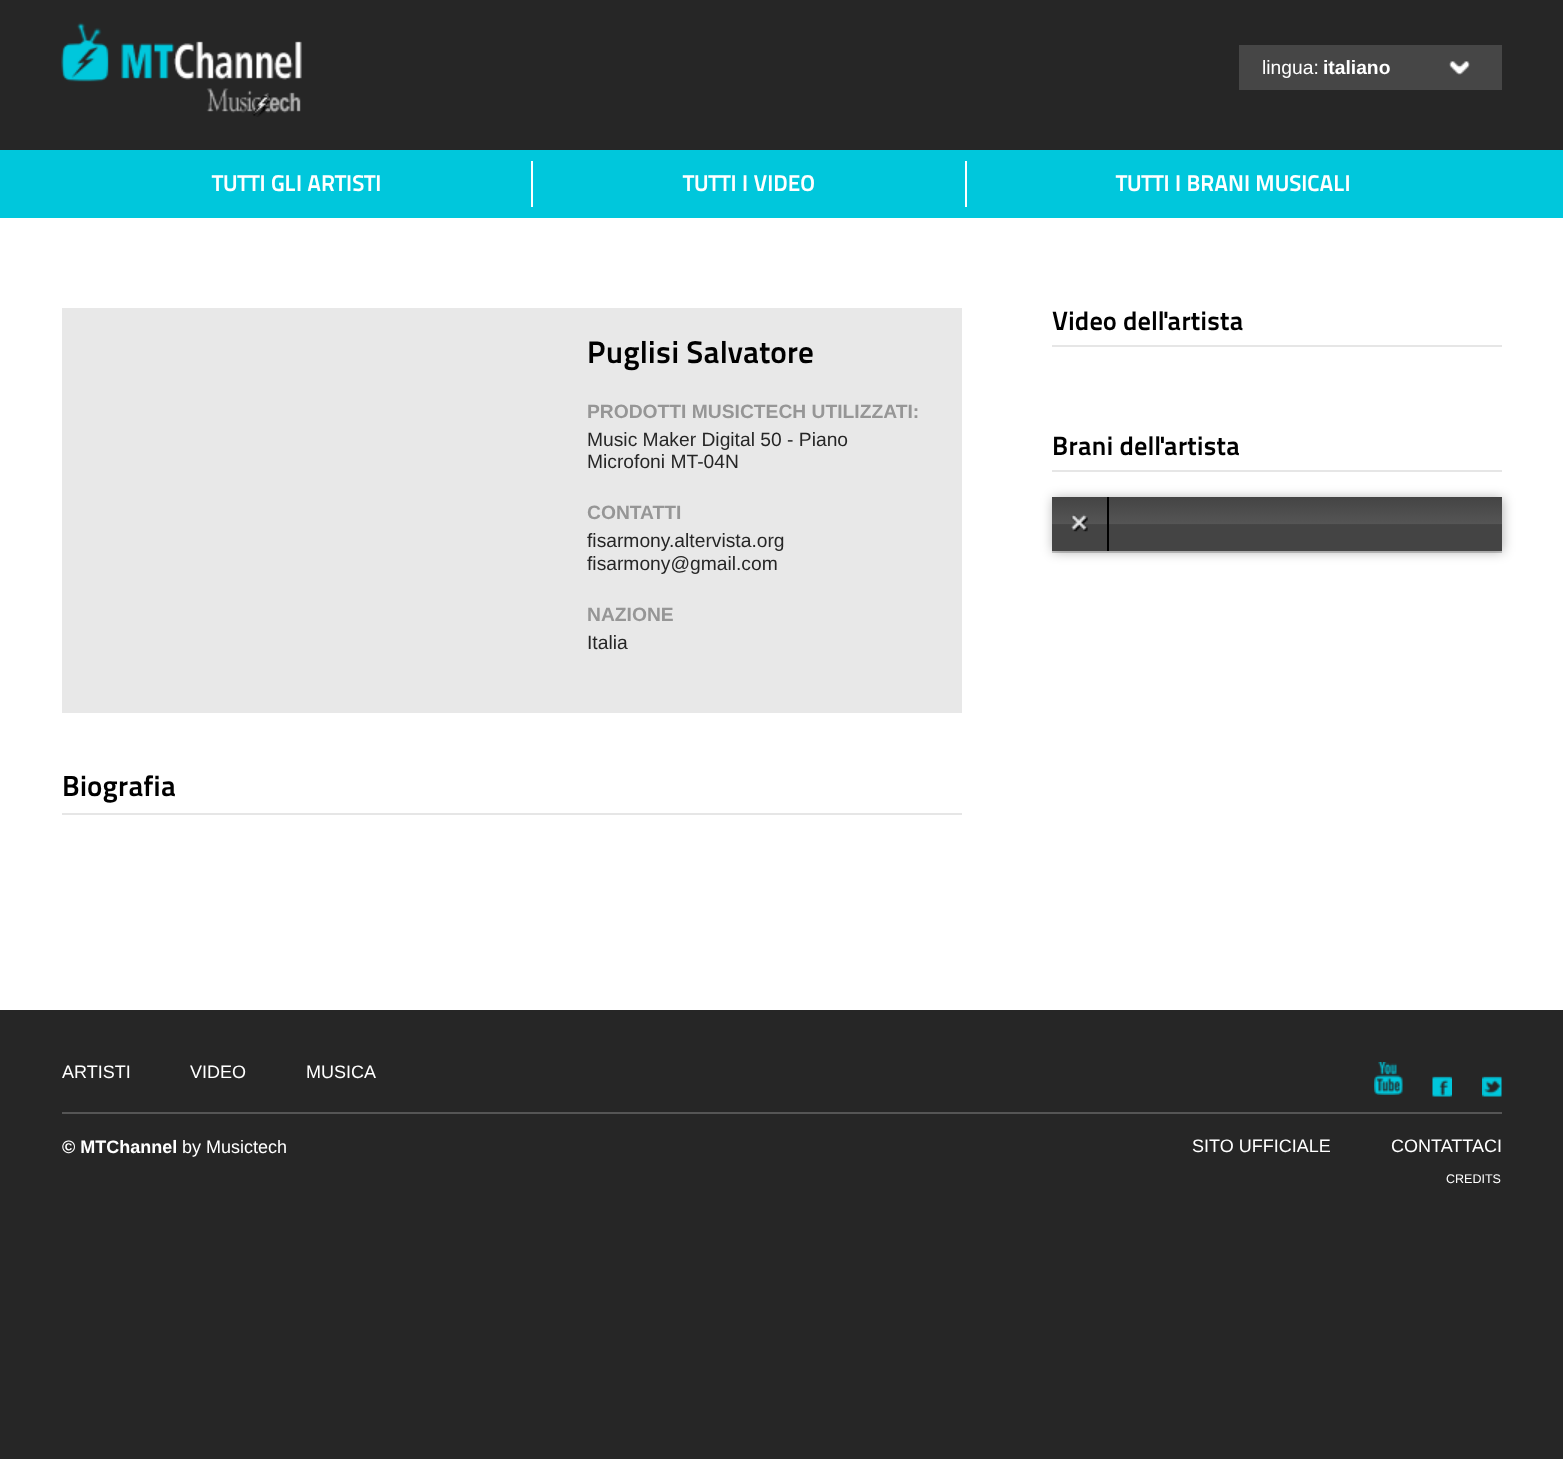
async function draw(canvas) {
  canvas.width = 1563;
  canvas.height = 1459;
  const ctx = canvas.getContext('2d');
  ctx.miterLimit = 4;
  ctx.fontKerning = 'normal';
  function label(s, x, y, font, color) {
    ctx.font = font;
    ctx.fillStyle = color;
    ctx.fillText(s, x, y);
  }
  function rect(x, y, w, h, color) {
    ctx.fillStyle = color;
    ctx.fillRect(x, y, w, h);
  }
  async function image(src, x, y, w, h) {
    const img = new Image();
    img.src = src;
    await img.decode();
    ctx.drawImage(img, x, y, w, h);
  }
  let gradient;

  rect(0, 0, 1563, 1459, '#262626');
  await image('assets/img1.png', 61, 22, 241, 95);
  rect(1239, 45, 263, 45, '#464646');
  await image('assets/img2.png', 1449, 61, 21, 14);
  label('lingua:', 1262, 74, '19.25px Liberation Sans', '#fff');
  label('italiano', 1323, 74, 'bold 19.25px Liberation Sans', '#fff');
  rect(0, 150, 1563, 68, '#00c7dc');
  rect(531, 161, 2, 46, '#fff');
  label('TUTTI GLI ARTISTI', 212, 191, '800 22.75px "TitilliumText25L"', '#fff');
  rect(965, 161, 2, 46, '#fff');
  label('TUTTI I VIDEO', 683, 191, '800 22.75px "TitilliumText25L"', '#fff');
  label('TUTTI I BRANI MUSICALI', 1116, 191, '800 22.75px "TitilliumText25L"', '#fff');
  rect(0, 218, 1563, 792, '#fff');
  rect(62, 308, 900, 405, '#e8e8e8');
  label('Puglisi Salvatore', 587, 363, '800 31.25px "TitilliumText25L"', '#000');
  label('PRODOTTI MUSICTECH UTILIZZATI:', 587, 418, 'bold 19.25px Liberation Sans', '#969696');
  label('Music Maker Digital 50 - Piano', 587, 446, '19.25px Liberation Sans', '#262626');
  label('Microfoni MT-04N', 587, 468, '19.25px Liberation Sans', '#262626');
  label('CONTATTI', 587, 519, 'bold 19.25px Liberation Sans', '#969696');
  label('fisarmony.altervista.org', 587, 547, '19.25px Liberation Sans', '#262626');
  label('fisarmony@gmail.com', 587, 570, '19.25px Liberation Sans', '#262626');
  label('NAZIONE', 587, 621, 'bold 19.25px Liberation Sans', '#969696');
  label('Italia', 587, 649, '19.25px Liberation Sans', '#262626');
  rect(62, 813, 900, 2, '#e6e6e6');
  label('Biografia', 62, 796, '800 29px "TitilliumText25L"', '#000');
  rect(1052, 345, 450, 2, '#e6e6e6');
  label('Video dell\'artista', 1052, 330, '800 26.5px "TitilliumText25L"', '#000');
  rect(1052, 470, 450, 2, '#e6e6e6');
  label('Brani dell\'artista', 1052, 455, '800 26.5px "TitilliumText25L"', '#000');
  rect(1052, 551, 450, 2, '#ccc');
  ctx.fillStyle = '#0000004d';
  ctx.filter = 'blur(6px)';
  ctx.beginPath();
  ctx.rect(1053, 498, 450, 54);
  ctx.fill();
  ctx.filter = 'none';
  gradient = ctx.createLinearGradient(1052, 497, 1052, 551);
  gradient.addColorStop(0, '#444');
  gradient.addColorStop(0.5, '#555');
  gradient.addColorStop(0.51, '#444');
  gradient.addColorStop(1, '#444');
  ctx.fillStyle = gradient;
  ctx.fillRect(1052, 497, 450, 54);
  rect(1107, 497, 2, 54, '#000');
  await image('assets/img3.png', 1071, 514, 17, 18);
  label('ARTISTI', 62, 1078, '18px Liberation Sans', '#fff');
  label('VIDEO', 190, 1078, '18px Liberation Sans', '#fff');
  label('MUSICA', 306, 1078, '18px Liberation Sans', '#fff');
  await image('assets/img4.png', 1374, 1062, 29, 33);
  await image('assets/img5.png', 1432, 1076, 20, 21);
  await image('assets/img6.png', 1482, 1076, 20, 21);
  rect(62, 1112, 1440, 2, '#555');
  label('© MTChannel', 62, 1153, 'bold 18px Liberation Sans', '#fff');
  label('by Musictech', 182, 1153, '18px Liberation Sans', '#fff');
  label('SITO UFFICIALE', 1192, 1152, '18px Liberation Sans', '#fff');
  label('CONTATTACI', 1391, 1152, '18px Liberation Sans', '#fff');
  label('CREDITS', 1446, 1183, '12.5px Liberation Sans', '#fff');
}

draw(document.querySelector('canvas'));
